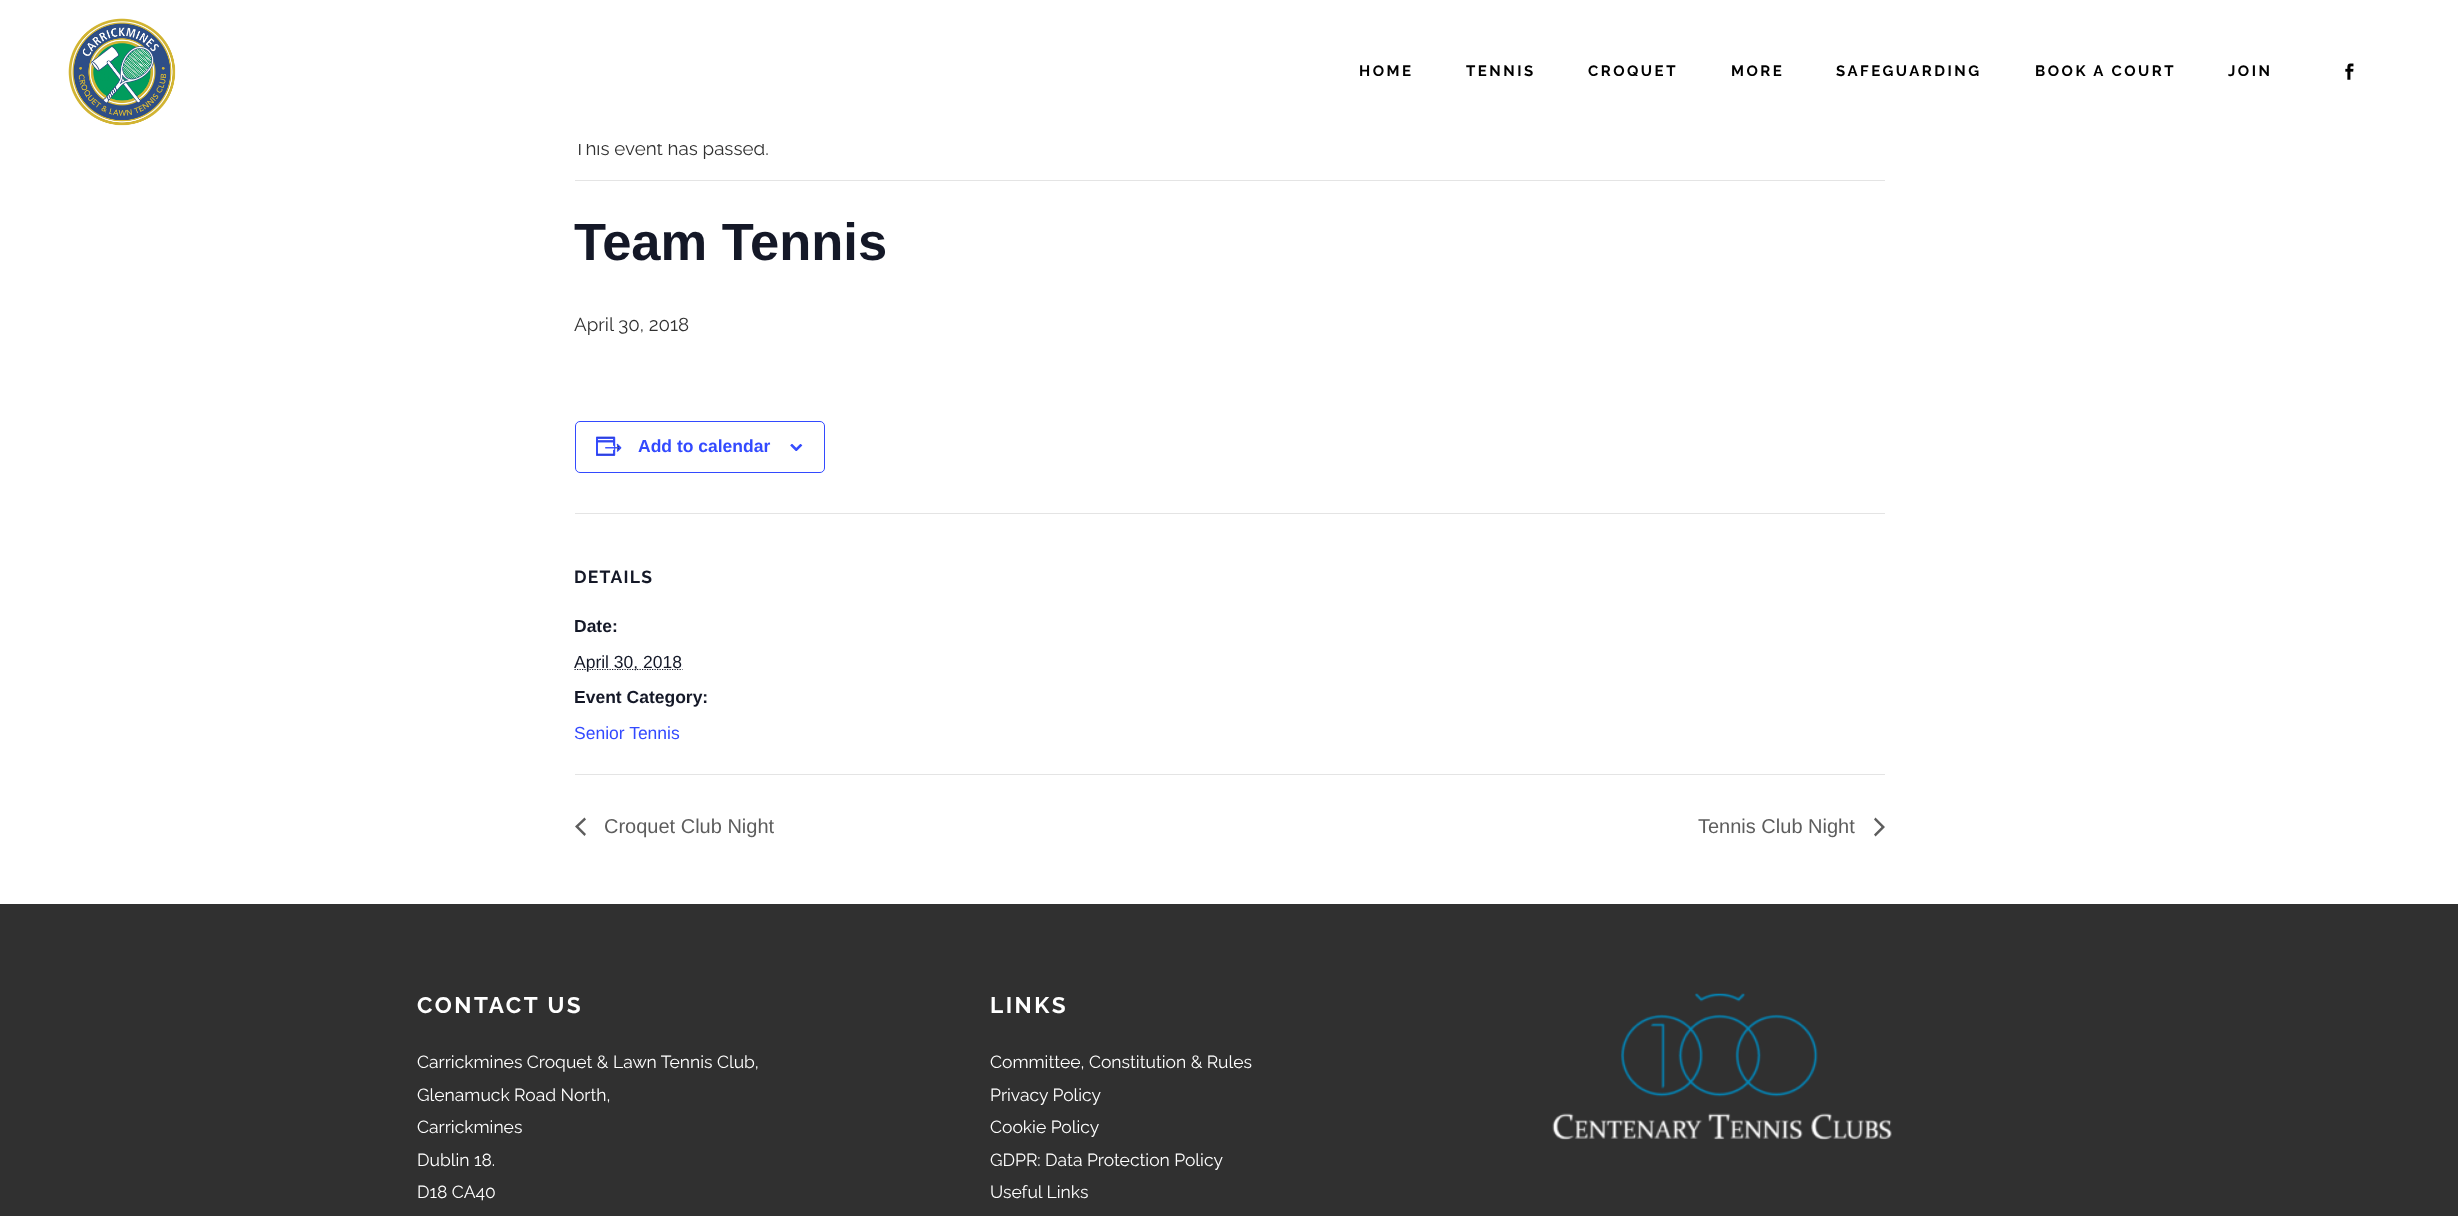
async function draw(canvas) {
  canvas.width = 2458;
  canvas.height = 1216;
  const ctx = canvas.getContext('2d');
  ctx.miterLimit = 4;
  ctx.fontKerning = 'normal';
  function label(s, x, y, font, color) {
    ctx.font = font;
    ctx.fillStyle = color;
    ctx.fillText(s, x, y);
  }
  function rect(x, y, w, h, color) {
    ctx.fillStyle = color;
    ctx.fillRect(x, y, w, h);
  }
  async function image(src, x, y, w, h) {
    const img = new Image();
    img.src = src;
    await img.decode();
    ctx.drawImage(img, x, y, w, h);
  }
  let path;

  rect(0, 0, 2458, 1216, '#fff');
  label('This event has passed.', 574, 155, '18.75px Raleway', '#303030');
  rect(574, 141, 191, 3, '#fff');
  await image('assets/img1.png', 68, 18, 108, 108);
  ctx.letterSpacing = '2.5px';
  label('HOME', 1359, 76, 'bold 15px Raleway', '#000');
  label('TENNIS', 1466, 76, 'bold 15px Raleway', '#000');
  label('CROQUET', 1588, 76, 'bold 15px Raleway', '#000');
  label('MORE', 1731, 76, 'bold 15px Raleway', '#000');
  label('SAFEGUARDING', 1836, 76, 'bold 15px Raleway', '#000');
  label('BOOK A COURT', 2035, 76, 'bold 15px Raleway', '#000');
  label('JOIN', 2228, 76, 'bold 15px Raleway', '#000');
  await image('assets/img2.png', 2345, 63, 9, 17);
  rect(575, 180, 1310, 1, '#e4e4e4');
  ctx.letterSpacing = '0px';
  label('Team Tennis', 574, 260, 'bold 52.5px Liberation Sans', '#141827');
  label('April 30, 2018', 574, 331, '18.75px Raleway', '#303030');
  ctx.beginPath();
  ctx.roundRect(575.5, 421.5, 249, 51, 4.5);
  ctx.strokeStyle = '#334aff';
  ctx.stroke();
  await image('assets/img3.png', 596, 436, 26, 20);
  label('Add to calendar', 638, 452, 'bold 17.5px Liberation Sans', '#334aff');
  await image('assets/img4.png', 790, 444, 13, 7);
  rect(575, 513, 1310, 1, '#e4e4e4');
  ctx.letterSpacing = '1.25px';
  label('DETAILS', 574, 583, 'bold 17.5px Raleway', '#141827');
  ctx.letterSpacing = '0px';
  label('Date:', 574, 632, 'bold 17.5px Liberation Sans', '#141827');
  path = new Path2D('M574.5 669.5H682.5');
  ctx.strokeStyle = '#141827';
  ctx.lineWidth = 1.2;
  ctx.setLineDash([1.25, 1.25]);
  ctx.stroke(path);
  label('April 30, 2018', 574, 668, '17.5px Liberation Sans', '#141827');
  label('Event Category:', 574, 703, 'bold 17.5px Liberation Sans', '#141827');
  label('Senior Tennis', 574, 739, '17.5px Liberation Sans', '#334aff');
  rect(575, 774, 1310, 1, '#e4e4e4');
  ctx.fillStyle = '#5d5d5d';
  path = new Path2D('M586 834L584.5 836L575 826.5L584.5 817.5L586 819.5L578.5 826.5Z');
  ctx.fill(path);
  label('Croquet Club Night', 604, 833, '20px Liberation Sans', '#5d5d5d');
  label('Tennis Club Night', 1698, 833, '20px Liberation Sans', '#5d5d5d');
  path = new Path2D('M1874 819.5L1875.5 817.5L1885 827L1875.5 836.5L1874 834.5L1881.5 827Z');
  ctx.fill(path);
  rect(0, 904, 2458, 312, '#303030');
  ctx.letterSpacing = '2.5px';
  label('CONTACT US', 417, 1013, 'bold 22.5px Raleway', '#fff');
  ctx.letterSpacing = '0px';
  label('Carrickmines Croquet & Lawn Tennis Club,', 417, 1068, '17.5px Raleway', '#fff');
  label('Glenamuck Road North,', 417, 1101, '17.5px Raleway', '#fff');
  label('Carrickmines', 417, 1133, '17.5px Raleway', '#fff');
  label('Dublin 18.', 417, 1166, '17.5px Raleway', '#fff');
  label('D18 CA40', 417, 1198, '17.5px Raleway', '#fff');
  ctx.letterSpacing = '2.5px';
  label('LINKS', 990, 1013, 'bold 22.5px Raleway', '#fff');
  ctx.letterSpacing = '0px';
  label('Committee, Constitution & Rules', 990, 1068, '17.5px Raleway', '#fff');
  label('Privacy Policy', 990, 1101, '17.5px Raleway', '#fff');
  label('Cookie Policy', 990, 1133, '17.5px Raleway', '#fff');
  label('GDPR: Data Protection Policy', 990, 1166, '17.5px Raleway', '#fff');
  label('Useful Links', 990, 1198, '17.5px Raleway', '#fff');
  await image('assets/img5.png', 1552, 993, 340, 147);
}

draw(document.querySelector('canvas'));
